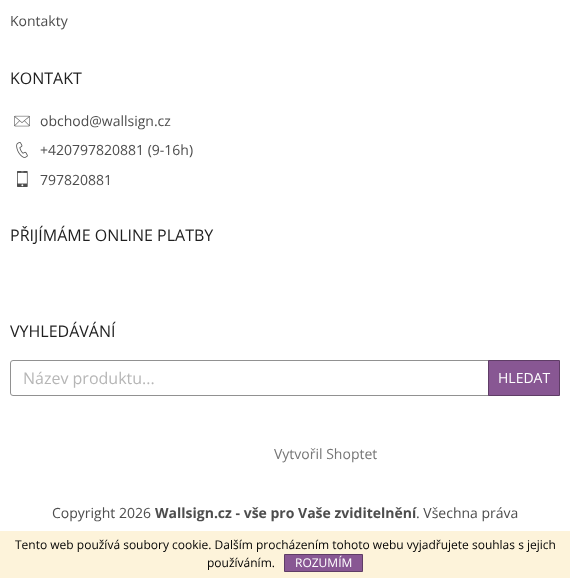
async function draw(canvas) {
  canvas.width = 585;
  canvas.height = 578;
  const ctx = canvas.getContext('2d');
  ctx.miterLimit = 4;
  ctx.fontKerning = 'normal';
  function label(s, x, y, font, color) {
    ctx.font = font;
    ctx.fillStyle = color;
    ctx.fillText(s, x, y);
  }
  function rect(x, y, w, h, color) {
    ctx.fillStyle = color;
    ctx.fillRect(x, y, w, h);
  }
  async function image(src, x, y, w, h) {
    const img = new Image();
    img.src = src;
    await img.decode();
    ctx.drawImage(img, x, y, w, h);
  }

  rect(0, 0, 585, 578, '#fff');
  label('Kontakty', 10, 26, '14px Open Sans', '#4d4d4d');
  label('KONTAKT', 10, 84, '16px Open Sans', '#1f1f1f');
  await image('assets/img1.png', 14, 115, 16, 12);
  label('obchod@wallsign.cz', 40, 126, '14px Open Sans', '#4d4d4d');
  await image('assets/img2.png', 16, 142, 12, 16);
  label('+420797820881 (9-16h)', 40, 155, '14px Open Sans', '#4d4d4d');
  await image('assets/img3.png', 17, 171, 11, 16);
  label('797820881', 40, 185, '14px Open Sans', '#4d4d4d');
  label('PŘIJÍMÁME ONLINE PLATBY', 10, 241, '16px Open Sans', '#1f1f1f');
  label('VYHLEDÁVÁNÍ', 10, 337, '16px Open Sans', '#1f1f1f');
  ctx.beginPath();
  ctx.roundRect(10.5, 360.5, 549, 35, 2.5);
  ctx.strokeStyle = '#919191';
  ctx.stroke();
  label('Název produktu...', 23, 384, '16px Open Sans', '#b6b6b6');
  ctx.fillStyle = '#885793';
  ctx.beginPath();
  ctx.rect(488.5, 360.5, 71, 35);
  ctx.fill();
  ctx.strokeStyle = '#5f3d66';
  ctx.stroke();
  label('HLEDAT', 498, 383, '14px Open Sans', '#fff');
  label('Vytvořil Shoptet', 274, 459, '14px Open Sans', '#767676');
  label('Copyright 2026', 52, 518, '14px Open Sans', '#4d4d4d');
  label('Wallsign.cz - vše pro Vaše zviditelnění', 155, 518, 'bold 14px Open Sans', '#4d4d4d');
  label('. Všechna práva', 416, 518, '14px Open Sans', '#4d4d4d');
  rect(0, 531, 570, 47, '#fdf3da');
  label('Tento web používá soubory cookie. Dalším procházením tohoto webu vyjadřujete souhlas s jejich', 15, 549, '12px Open Sans', '#000');
  label('používáním.', 207, 567, '12px Open Sans', '#000');
  ctx.fillStyle = '#885793';
  ctx.beginPath();
  ctx.rect(284.5, 554.5, 78, 17);
  ctx.fill();
  ctx.stroke();
  label('ROZUMÍM', 295, 567, '12px Open Sans', '#fff');
}

draw(document.querySelector('canvas'));
